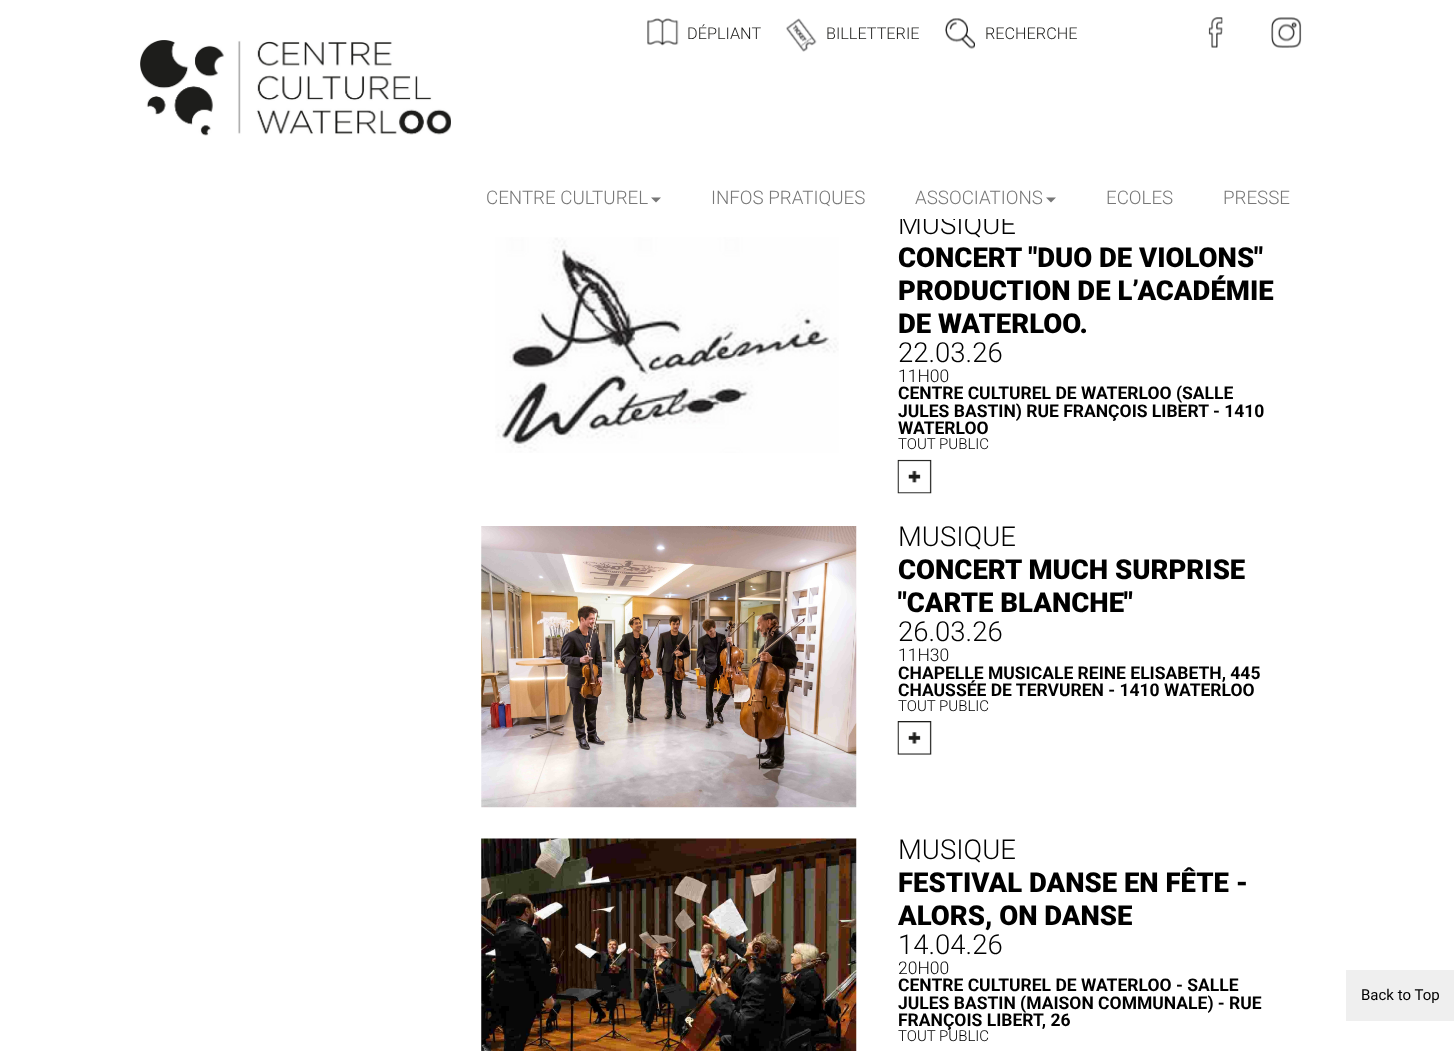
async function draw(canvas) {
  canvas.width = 1454;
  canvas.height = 1051;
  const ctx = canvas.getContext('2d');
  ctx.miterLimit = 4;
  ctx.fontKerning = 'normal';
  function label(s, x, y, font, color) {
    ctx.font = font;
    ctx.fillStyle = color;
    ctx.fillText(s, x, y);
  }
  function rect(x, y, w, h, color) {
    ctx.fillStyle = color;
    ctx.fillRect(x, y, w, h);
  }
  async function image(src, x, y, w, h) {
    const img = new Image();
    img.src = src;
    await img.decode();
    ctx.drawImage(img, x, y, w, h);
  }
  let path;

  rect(0, 0, 1454, 1051, '#fff');
  await image('assets/img1.png', 647, 18, 32, 28);
  label('DÉPLIANT', 687, 39, '300 16.25px Roboto', '#1d1d1b');
  await image('assets/img2.png', 786, 18, 31, 34);
  label('BILLETTERIE', 826, 39, '300 16.25px Roboto', '#1d1d1b');
  await image('assets/img3.png', 945, 18, 30, 31);
  label('RECHERCHE', 985, 39, '300 16.25px Roboto', '#1d1d1b');
  await image('assets/img4.png', 1208, 17, 15, 31);
  await image('assets/img5.png', 1271, 17, 31, 31);
  label('MUSIQUE', 898, 234, '300 27.5px Roboto', '#000');
  rect(900, 214, 115, 5, '#fff');
  await image('assets/img6.png', 140, 40, 311, 96);
  label('CENTRE CULTUREL', 486, 204, '300 18.75px Roboto', '#777');
  path = new Path2D('M651 197.5H661L656 202.5Z');
  ctx.fill(path);
  label('INFOS PRATIQUES', 711, 204, '300 18.75px Roboto', '#777');
  label('ASSOCIATIONS', 915, 204, '300 18.75px Roboto', '#777');
  path = new Path2D('M1046 197.5H1056L1051 202.5Z');
  ctx.fill(path);
  label('ECOLES', 1106, 204, '300 18.75px Roboto', '#777');
  label('PRESSE', 1223, 204, '300 18.75px Roboto', '#777');
  await image('assets/img7.png', 495, 237, 344, 216);
  label('CONCERT "DUO DE VIOLONS"', 898, 267, '900 27.5px Roboto', '#000');
  label('PRODUCTION DE L’ACADÉMIE', 898, 300, '900 27.5px Roboto', '#000');
  label('DE WATERLOO.', 898, 333, '900 27.5px Roboto', '#000');
  label('22.03.26', 898, 362, '300 27.5px Roboto', '#000');
  label('11H00', 898, 382, '300 17.5px Roboto', '#000');
  label('CENTRE CULTUREL DE WATERLOO (SALLE', 898, 399, 'bold 17.5px Roboto', '#000');
  label('JULES BASTIN) RUE FRANÇOIS LIBERT - 1410', 898, 417, 'bold 17.5px Roboto', '#000');
  label('WATERLOO', 898, 434, 'bold 17.5px Roboto', '#000');
  label('TOUT PUBLIC', 898, 449, '300 15px Roboto', '#000');
  await image('assets/img8.png', 897, 459, 35, 35);
  await image('assets/img9.png', 481, 526, 376, 282);
  label('MUSIQUE', 898, 546, '300 27.5px Roboto', '#000');
  label('CONCERT MUCH SURPRISE', 898, 579, '900 27.5px Roboto', '#000');
  label('"CARTE BLANCHE"', 898, 612, '900 27.5px Roboto', '#000');
  label('26.03.26', 898, 641, '300 27.5px Roboto', '#000');
  label('11H30', 898, 661, '300 17.5px Roboto', '#000');
  label('CHAPELLE MUSICALE REINE ELISABETH, 445', 898, 679, 'bold 17.5px Roboto', '#000');
  label('CHAUSSÉE DE TERVUREN - 1410 WATERLOO', 898, 696, 'bold 17.5px Roboto', '#000');
  label('TOUT PUBLIC', 898, 711, '300 15px Roboto', '#000');
  await image('assets/img10.png', 897, 721, 35, 34);
  await image('assets/img11.png', 481, 838, 376, 213);
  label('MUSIQUE', 898, 859, '300 27.5px Roboto', '#000');
  label('FESTIVAL DANSE EN FÊTE -', 898, 892, '900 27.5px Roboto', '#000');
  label('ALORS, ON DANSE', 898, 925, '900 27.5px Roboto', '#000');
  label('14.04.26', 898, 954, '300 27.5px Roboto', '#000');
  label('20H00', 898, 974, '300 17.5px Roboto', '#000');
  label('CENTRE CULTUREL DE WATERLOO - SALLE', 898, 991, 'bold 17.5px Roboto', '#000');
  label('JULES BASTIN (MAISON COMMUNALE) - RUE', 898, 1009, 'bold 17.5px Roboto', '#000');
  label('FRANÇOIS LIBERT, 26', 898, 1026, 'bold 17.5px Roboto', '#000');
  label('TOUT PUBLIC', 898, 1041, '300 15px Roboto', '#000');
  rect(1346, 970, 108, 51, '#efefef');
  label('Back to Top', 1361, 1000, '15px Roboto', '#000');
}

draw(document.querySelector('canvas'));
